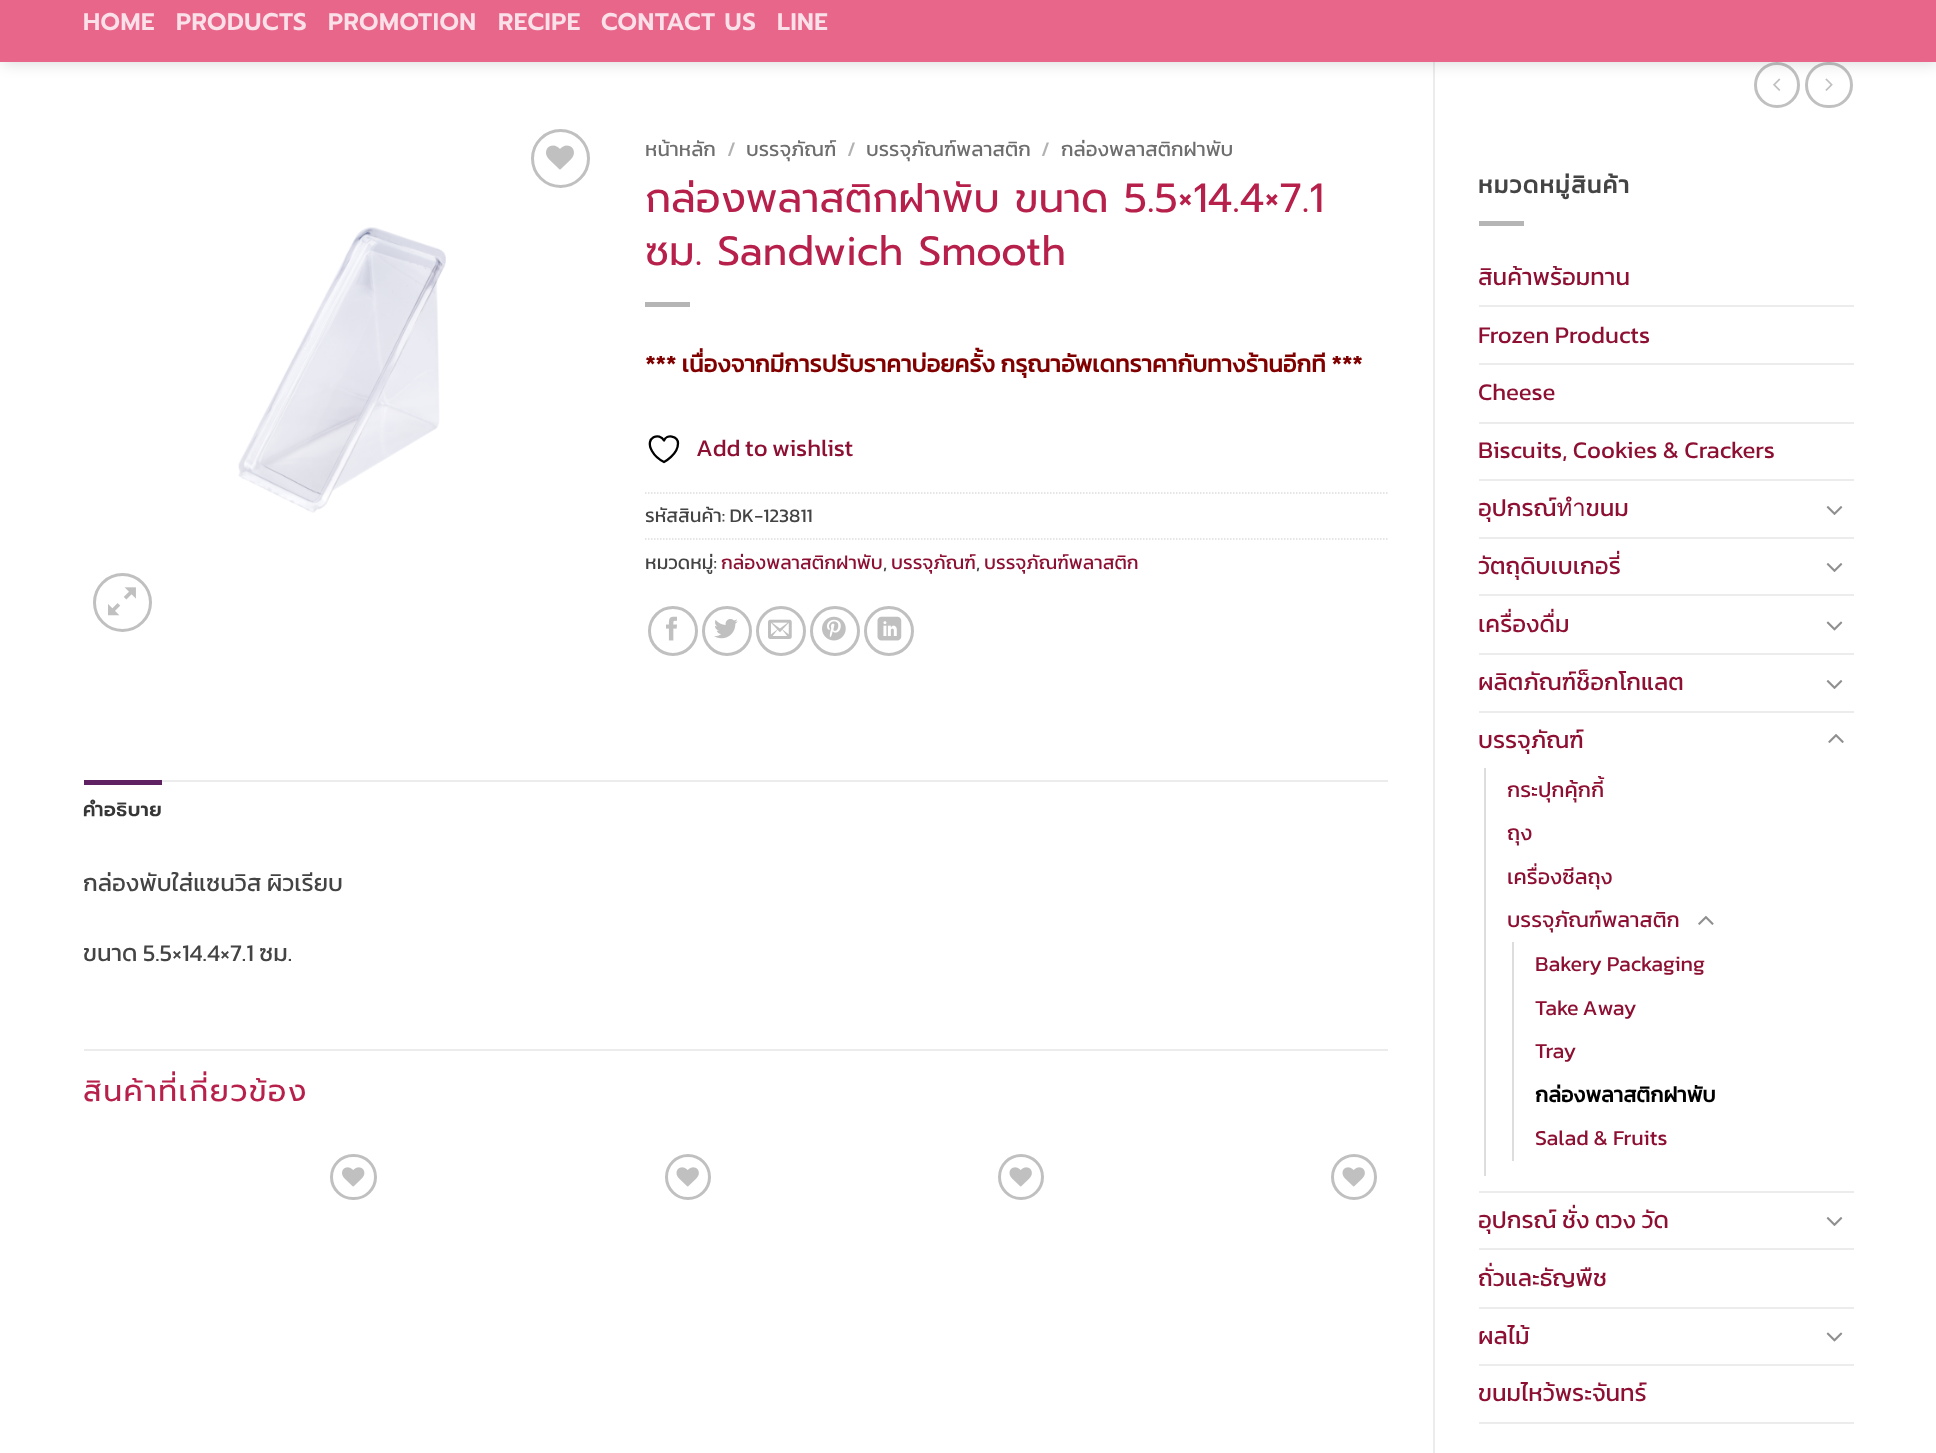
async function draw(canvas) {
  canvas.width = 1936;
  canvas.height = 1453;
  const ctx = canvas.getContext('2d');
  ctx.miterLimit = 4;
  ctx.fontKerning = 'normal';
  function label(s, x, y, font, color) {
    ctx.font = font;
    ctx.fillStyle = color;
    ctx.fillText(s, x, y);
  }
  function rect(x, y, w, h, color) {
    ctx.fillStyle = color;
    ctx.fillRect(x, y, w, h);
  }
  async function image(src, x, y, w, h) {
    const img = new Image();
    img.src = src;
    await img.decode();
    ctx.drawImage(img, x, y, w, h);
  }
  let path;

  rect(0, 0, 1936, 1453, '#fff');
  rect(1433, 62, 2, 1391, '#ececec');
  ctx.beginPath();
  ctx.arc(1777, 85, 21.5, 0, 2 * Math.PI);
  ctx.strokeStyle = '#c0c0c0';
  ctx.lineWidth = 3;
  ctx.stroke();
  await image('assets/img11.png', 1773, 78, 8, 13);
  ctx.beginPath();
  ctx.roundRect(1806.5, 63.5, 45, 43, 21.5);
  ctx.stroke();
  await image('assets/img12.png', 1825, 78, 8, 13);
  ctx.fillStyle = '#00000026';
  ctx.filter = 'blur(7.5px)';
  ctx.beginPath();
  ctx.rect(2, -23, 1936, 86);
  ctx.fill();
  ctx.filter = 'none';
  rect(0, 0, 1936, 62, '#e8668a');
  ctx.letterSpacing = '0.5px';
  label('HOME', 83, 30, '600 24px Prompt', '#fae0e8');
  label('PRODUCTS', 176, 30, '600 24px Prompt', '#fae0e8');
  label('PROMOTION', 328, 30, '600 24px Prompt', '#fae0e8');
  label('RECIPE', 498, 30, '600 24px Prompt', '#fae0e8');
  label('CONTACT US', 601, 30, '600 24px Prompt', '#fae0e8');
  label('LINE', 777, 30, '600 24px Prompt', '#fae0e8');
  ctx.beginPath();
  ctx.arc(560.5, 158.5, 28, 0, 2 * Math.PI);
  ctx.stroke();
  await image('assets/img1.png', 546, 145, 28, 25);
  await image('assets/img2.png', 238, 227, 208, 286);
  ctx.beginPath();
  ctx.arc(122.5, 602.5, 28, 0, 2 * Math.PI);
  ctx.stroke();
  await image('assets/img3.png', 108, 587, 28, 29);
  ctx.letterSpacing = '0px';
  label('หน้าหลัก', 645, 156, '20.5px Kanit', '#6e6e6e');
  label('/', 727, 156, '20.5px Kanit', '#b2b2b2');
  label('บรรจุภัณฑ์', 746, 156, '20.5px Kanit', '#6e6e6e');
  label('/', 847, 156, '20.5px Kanit', '#b2b2b2');
  label('บรรจุภัณฑ์พลาสติก', 866, 156, '20.5px Kanit', '#6e6e6e');
  label('/', 1041, 156, '20.5px Kanit', '#b2b2b2');
  label('กล่องพลาสติกฝาพับ', 1061, 156, '20.5px Kanit', '#6e6e6e');
  label('กล่องพลาสติกฝาพับ ขนาด 5.5×14.4×7.1', 645, 212, '40.75px Prompt', '#b6204a');
  label('ซม. Sandwich Smooth', 645, 265, '40.75px Prompt', '#b6204a');
  rect(645, 302, 45, 5, '#b5b5b5');
  label('*** เนื่องจากมีการปรับราคาบ่อยครั้ง กรุณาอัพเดทราคากับทางร้านอีกที ***', 645, 372, 'bold 24px Kanit', '#800000');
  ctx.wordSpacing = '-1px';
  label('Add to wishlist', 696, 456, '24px Kanit', '#8d1033');
  path = new Path2D('M678 443.5C678 435.5 666.5 434 664 440.5C660 432 644 437 652 451C654.5 455.5 659 459.5 664 462C664 462 678 454.5 678 443.5Z');
  ctx.strokeStyle = '#000';
  ctx.lineWidth = 2.3;
  ctx.lineCap = 'round';
  ctx.lineJoin = 'round';
  ctx.stroke(path);
  path = new Path2D('M645 493H1387.5');
  ctx.strokeStyle = '#ddd';
  ctx.lineWidth = 1.5;
  ctx.lineCap = 'butt';
  ctx.lineJoin = 'miter';
  ctx.setLineDash([1.5, 1.5]);
  ctx.stroke(path);
  ctx.wordSpacing = '0px';
  label('รหัสสินค้า: DK-123811', 645, 522, '19.25px Kanit', '#444');
  path = new Path2D('M645 539H1387.5');
  ctx.stroke(path);
  label('หมวดหมู่:', 645, 569, '19.25px Kanit', '#444');
  label('กล่องพลาสติกฝาพับ', 721, 569, '19.25px Kanit', '#8d1033');
  label(',', 883, 569, '19.25px Kanit', '#444');
  label('บรรจุภัณฑ์', 891, 569, '19.25px Kanit', '#8d1033');
  label(',', 976, 569, '19.25px Kanit', '#444');
  label('บรรจุภัณฑ์พลาสติก', 984, 569, '19.25px Kanit', '#8d1033');
  ctx.beginPath();
  ctx.arc(673, 631, 23.5, 0, 2 * Math.PI);
  ctx.strokeStyle = '#c0c0c0';
  ctx.lineWidth = 3;
  ctx.setLineDash([]);
  ctx.stroke();
  await image('assets/img4.png', 666, 616, 11, 25);
  ctx.beginPath();
  ctx.arc(727, 631, 23.5, 0, 2 * Math.PI);
  ctx.stroke();
  await image('assets/img5.png', 714, 619, 24, 20);
  ctx.beginPath();
  ctx.arc(781, 631, 23.5, 0, 2 * Math.PI);
  ctx.stroke();
  await image('assets/img6.png', 768, 619, 24, 20);
  ctx.beginPath();
  ctx.arc(835, 631, 23.5, 0, 2 * Math.PI);
  ctx.stroke();
  await image('assets/img7.png', 822, 616, 24, 25);
  ctx.beginPath();
  ctx.arc(889, 631, 23.5, 0, 2 * Math.PI);
  ctx.stroke();
  await image('assets/img8.png', 877, 616, 25, 25);
  rect(162, 780, 1226, 2, '#ececec');
  rect(84, 780, 78, 5, '#602163');
  ctx.letterSpacing = '0.5px';
  label('คำอธิบาย', 83, 816, '600 19.25px Prompt', '#363636');
  ctx.letterSpacing = '0px';
  label('กล่องพับใส่แซนวิส ผิวเรียบ', 83, 891, '24px Kanit', '#444');
  label('ขนาด 5.5×14.4×7.1 ซม.', 83, 961, '24px Kanit', '#444');
  rect(84, 1049, 1304, 2, '#ececec');
  ctx.letterSpacing = '1.5px';
  label('สินค้าที่เกี่ยวข้อง', 83, 1101, '30px Prompt', '#b6204a');
  ctx.beginPath();
  ctx.roundRect(331.5, 1155.5, 44, 43, 21.5);
  ctx.stroke();
  await image('assets/img9.png', 342, 1167, 23, 20);
  ctx.beginPath();
  ctx.arc(688, 1177, 21.5, 0, 2 * Math.PI);
  ctx.stroke();
  await image('assets/img10.png', 676, 1167, 23, 20);
  ctx.beginPath();
  ctx.arc(1021, 1177, 21.5, 0, 2 * Math.PI);
  ctx.stroke();
  await image('assets/img10.png', 1009, 1167, 23, 20);
  ctx.beginPath();
  ctx.arc(1354, 1177, 21.5, 0, 2 * Math.PI);
  ctx.stroke();
  await image('assets/img10.png', 1342, 1167, 23, 20);
  ctx.letterSpacing = '1.25px';
  label('หมวดหมู่สินค้า', 1478, 193, 'bold 24px Kanit', '#444');
  rect(1479, 221, 45, 5, '#b5b5b5');
  ctx.letterSpacing = '0px';
  label('สินค้าพร้อมทาน', 1478, 285, '24px Kanit', '#8d1033');
  rect(1479, 305, 375, 2, '#ececec');
  label('Frozen Products', 1478, 343, '24px Kanit', '#8d1033');
  rect(1479, 363, 375, 2, '#ececec');
  label('Cheese', 1478, 400, '24px Kanit', '#8d1033');
  rect(1479, 422, 375, 2, '#ececec');
  label('Biscuits, Cookies & Crackers', 1478, 458, '24px Kanit', '#8d1033');
  rect(1479, 479, 375, 2, '#ececec');
  label('อุปกรณ์ทำขนม', 1478, 516, '24px Kanit', '#8d1033');
  await image('assets/img13.png', 1826, 506, 17, 9);
  rect(1479, 537, 375, 2, '#ececec');
  label('วัตถุดิบเบเกอรี่', 1478, 574, '24px Kanit', '#8d1033');
  await image('assets/img13.png', 1826, 563, 17, 9);
  rect(1479, 594, 375, 2, '#ececec');
  label('เครื่องดื่ม', 1478, 632, '24px Kanit', '#8d1033');
  await image('assets/img14.png', 1826, 621, 17, 10);
  rect(1479, 653, 375, 2, '#ececec');
  label('ผลิตภัณฑ์ช็อกโกแลต', 1478, 690, '24px Kanit', '#8d1033');
  await image('assets/img13.png', 1826, 680, 17, 9);
  rect(1479, 711, 375, 2, '#ececec');
  label('บรรจุภัณฑ์', 1478, 748, '24px Kanit', '#8d1033');
  await image('assets/img15.png', 1828, 734, 16, 9);
  rect(1484, 768, 2, 408, '#ddd');
  label('กระปุกคุ้กกี้', 1507, 797, '21.5px Kanit', '#8d1033');
  label('ถุง', 1507, 840, '21.5px Kanit', '#8d1033');
  label('เครื่องซีลถุง', 1507, 884, '21.5px Kanit', '#8d1033');
  label('บรรจุภัณฑ์พลาสติก', 1507, 927, '21.5px Kanit', '#8d1033');
  await image('assets/img16.png', 1698, 915, 16, 10);
  rect(1512, 942, 2, 219, '#ddd');
  label('Bakery Packaging', 1535, 971, '21.5px Kanit', '#8d1033');
  ctx.wordSpacing = '-1px';
  label('Take Away', 1535, 1015, '21.5px Kanit', '#8d1033');
  ctx.wordSpacing = '0px';
  label('Tray', 1535, 1058, '21.5px Kanit', '#8d1033');
  label('กล่องพลาสติกฝาพับ', 1535, 1102, 'bold 21.5px Kanit', '#000');
  label('Salad & Fruits', 1535, 1145, '21.5px Kanit', '#8d1033');
  rect(1479, 1191, 375, 2, '#ececec');
  label('อุปกรณ์ ชั่ง ตวง วัด', 1478, 1228, '24px Kanit', '#8d1033');
  await image('assets/img13.png', 1826, 1217, 17, 9);
  rect(1479, 1248, 375, 2, '#ececec');
  label('ถั่วและธัญพืช', 1478, 1286, '24px Kanit', '#8d1033');
  rect(1479, 1307, 375, 2, '#ececec');
  label('ผลไม้', 1478, 1344, '24px Kanit', '#8d1033');
  await image('assets/img14.png', 1826, 1332, 17, 10);
  rect(1479, 1364, 375, 2, '#ececec');
  label('ขนมไหว้พระจันทร์', 1478, 1401, '24px Kanit', '#8d1033');
  rect(1479, 1422, 375, 2, '#ececec');
}

draw(document.querySelector('canvas'));
